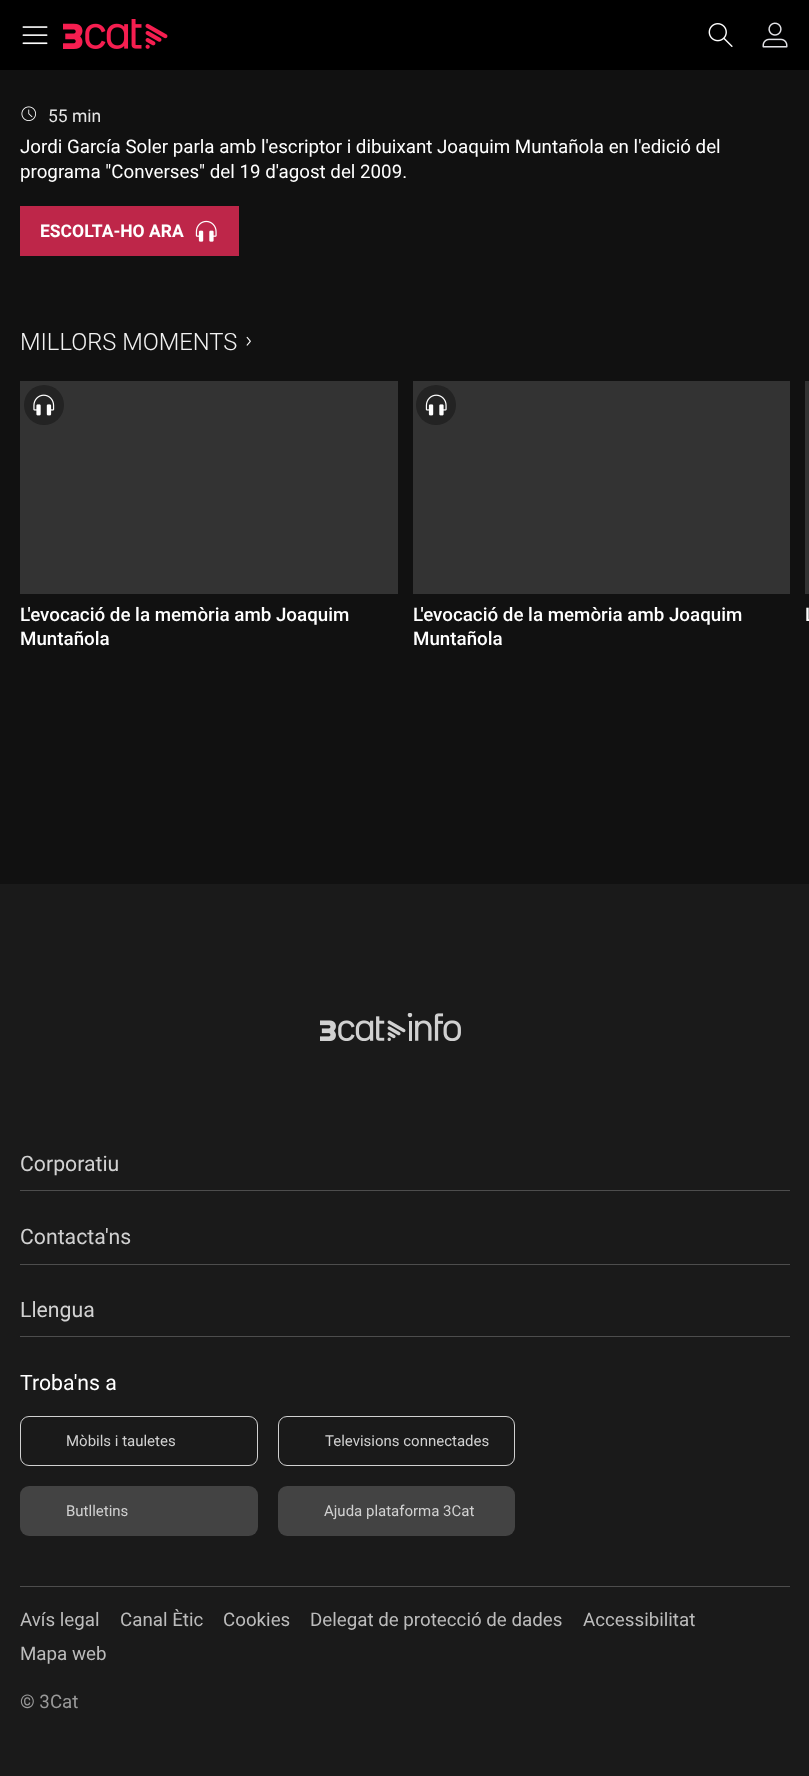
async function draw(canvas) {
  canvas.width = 809;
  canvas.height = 1776;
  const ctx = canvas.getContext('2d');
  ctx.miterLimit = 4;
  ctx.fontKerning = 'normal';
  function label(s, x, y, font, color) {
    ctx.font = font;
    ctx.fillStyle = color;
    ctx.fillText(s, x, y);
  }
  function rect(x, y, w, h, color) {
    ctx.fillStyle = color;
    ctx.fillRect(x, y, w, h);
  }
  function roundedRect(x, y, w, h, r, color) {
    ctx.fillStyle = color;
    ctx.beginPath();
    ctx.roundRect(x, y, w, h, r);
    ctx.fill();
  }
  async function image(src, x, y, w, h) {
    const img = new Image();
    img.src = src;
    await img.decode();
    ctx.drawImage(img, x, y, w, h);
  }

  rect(0, 0, 809, 1776, '#111');
  rect(0, 0, 809, 70, '#000');
  await image('assets/img1.png', 22, 26, 26, 19);
  await image('assets/img2.png', 63, 19, 105, 30);
  await image('assets/img3.png', 708, 23, 25, 24);
  await image('assets/img4.png', 762, 22, 26, 26);
  await image('assets/img5.png', 21, 106, 15, 15);
  label('55 min', 48, 122, '17.5px Roboto', '#e5e5e5');
  label('Jordi García Soler parla amb l\'escriptor i dibuixant Joaquim Muntañola en l\'edició del', 20, 153, '18.75px Roboto', '#fff');
  label('programa "Converses" del 19 d\'agost del 2009.', 20, 178, '18.75px Roboto', '#fff');
  rect(20, 206, 219, 50, '#be2649');
  label('ESCOLTA-HO ARA', 40, 237, 'bold 17.5px Roboto', '#fff');
  await image('assets/img6.png', 195, 220, 22, 22);
  label('MILLORS MOMENTS', 20, 350, '300 23.75px Roboto', '#f2f2f2');
  await image('assets/img7.png', 246, 336, 5, 10);
  rect(20, 381, 378, 213, '#333');
  ctx.fillStyle = '#232323';
  ctx.beginPath();
  ctx.arc(44, 405, 20, 0, 2 * Math.PI);
  ctx.fill();
  await image('assets/img8.png', 33, 394, 22, 22);
  label('L\'evocació de la memòria amb Joaquim', 20, 621, '500 18.75px Roboto', '#fff');
  label('Muntañola', 20, 645, '500 18.75px Roboto', '#fff');
  rect(413, 381, 377, 213, '#333');
  ctx.fillStyle = '#232323';
  ctx.beginPath();
  ctx.arc(436, 405, 20, 0, 2 * Math.PI);
  ctx.fill();
  await image('assets/img9.png', 425, 394, 22, 22);
  label('L\'evocació de la memòria amb Joaquim', 413, 621, '500 18.75px Roboto', '#fff');
  label('Muntañola', 413, 645, '500 18.75px Roboto', '#fff');
  rect(805, 381, 4, 213, '#333');
  label('L', 805, 621, '500 18.75px Roboto', '#fff');
  rect(0, 884, 809, 892, '#1a1a1a');
  await image('assets/img10.png', 320, 1013, 141, 28);
  rect(20, 1190, 770, 1, '#4d4d4d');
  label('Corporatiu', 20, 1171, '21.25px Roboto', '#d1d1d1');
  rect(20, 1264, 770, 1, '#4d4d4d');
  label('Contacta\'ns', 20, 1244, '21.25px Roboto', '#d1d1d1');
  rect(20, 1336, 770, 1, '#4d4d4d');
  label('Llengua', 20, 1317, '21.25px Roboto', '#d1d1d1');
  label('Troba\'ns a', 20, 1390, '21.25px Roboto', '#fff');
  ctx.beginPath();
  ctx.roundRect(20.5, 1416.5, 237, 49, 8.5);
  ctx.strokeStyle = '#d1d1d1';
  ctx.stroke();
  label('Mòbils i tauletes', 66, 1446, '15px Roboto', '#d1d1d1');
  ctx.beginPath();
  ctx.roundRect(278.5, 1416.5, 236, 49, 8.5);
  ctx.stroke();
  label('Televisions connectades', 325, 1446, '15px Roboto', '#d1d1d1');
  roundedRect(20, 1486, 238, 50, 9, '#434343');
  label('Butlletins', 66, 1516, '15px Roboto', '#d1d1d1');
  roundedRect(278, 1486, 237, 50, 9, '#434343');
  label('Ajuda plataforma 3Cat', 324, 1516, '15px Roboto', '#d1d1d1');
  rect(20, 1586, 770, 1, '#4d4d4d');
  label('Avís legal', 20, 1626, '18.75px Roboto', '#bcbcbc');
  label('Canal Ètic', 120, 1626, '18.75px Roboto', '#bcbcbc');
  label('Cookies', 223, 1626, '18.75px Roboto', '#bcbcbc');
  label('Delegat de protecció de dades', 310, 1626, '18.75px Roboto', '#bcbcbc');
  label('Accessibilitat', 583, 1626, '18.75px Roboto', '#bcbcbc');
  label('Mapa web', 20, 1660, '18.75px Roboto', '#bcbcbc');
  label('© 3Cat', 20, 1708, '18.75px Roboto', '#999');
}

draw(document.querySelector('canvas'));
